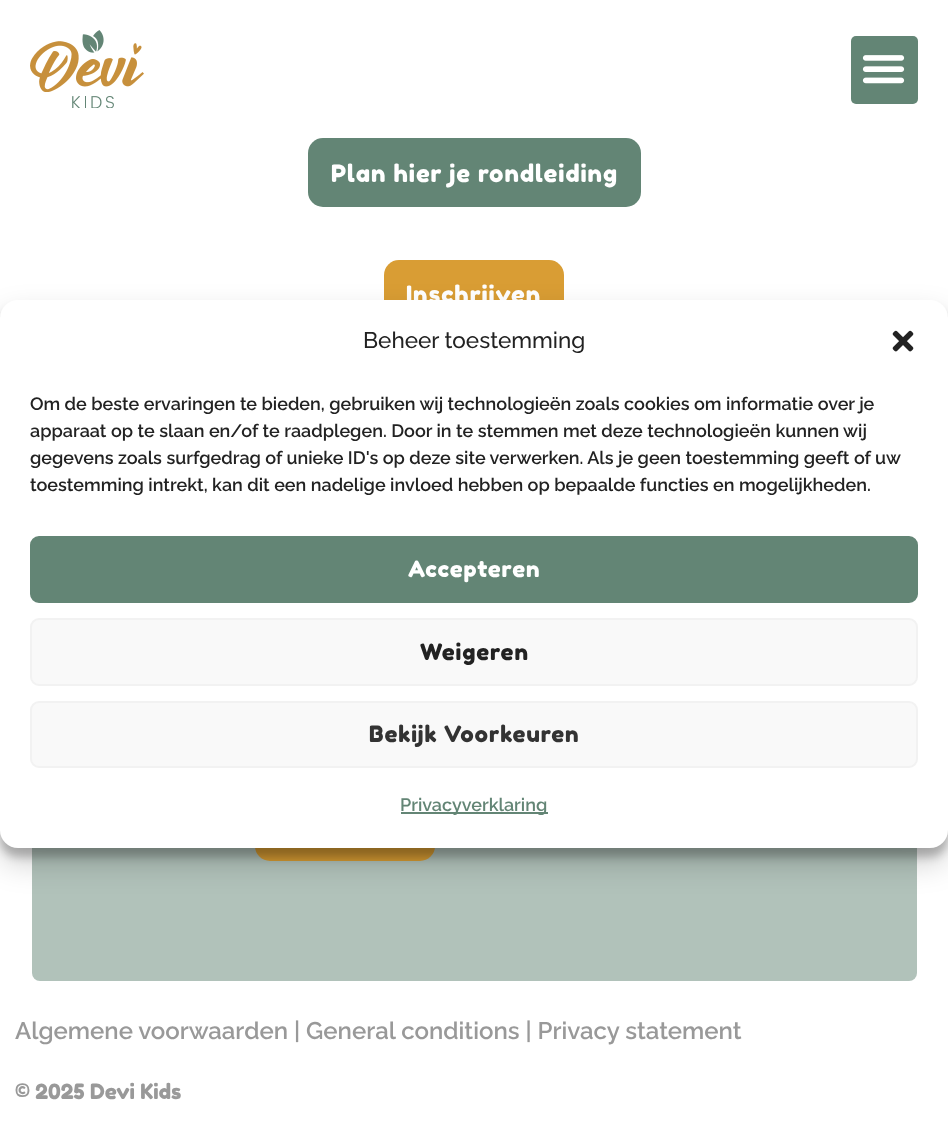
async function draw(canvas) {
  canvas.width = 948;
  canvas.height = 1147;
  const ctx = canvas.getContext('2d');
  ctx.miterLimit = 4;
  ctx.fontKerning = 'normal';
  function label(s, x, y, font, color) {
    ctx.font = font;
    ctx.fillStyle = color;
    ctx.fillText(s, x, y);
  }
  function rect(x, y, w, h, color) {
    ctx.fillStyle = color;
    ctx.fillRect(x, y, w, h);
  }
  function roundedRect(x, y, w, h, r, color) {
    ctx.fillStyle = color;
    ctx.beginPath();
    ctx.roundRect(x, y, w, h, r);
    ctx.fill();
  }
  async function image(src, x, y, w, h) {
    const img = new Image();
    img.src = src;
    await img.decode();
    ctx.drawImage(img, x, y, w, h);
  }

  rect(0, 0, 948, 1147, '#fff');
  roundedRect(32, -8, 885, 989, 8, '#b1c2ba');
  rect(32, 0, 885, 318, '#fff');
  await image('assets/img1.png', 30, 30, 114, 78);
  roundedRect(851, 36, 67, 68, 5, '#638575');
  await image('assets/img2.png', 862, 55, 43, 29);
  roundedRect(308, 138, 333, 69, 15, '#638575');
  ctx.letterSpacing = '0.9px';
  label('Plan hier je rondleiding', 331, 182, '24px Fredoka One', '#fff');
  roundedRect(384, 260, 180, 69, 15, '#d99d34');
  label('Inschrijven', 406, 303, '24px Fredoka One', '#fff');
  roundedRect(255, 792, 180, 69, 15, '#d99d34');
  ctx.fillStyle = '#0000003b';
  ctx.filter = 'blur(4.5px)';
  ctx.beginPath();
  ctx.roundRect(0, 309, 948, 548, 18);
  ctx.fill();
  ctx.filter = 'none';
  ctx.fillStyle = '#00000030';
  ctx.filter = 'blur(15px)';
  ctx.beginPath();
  ctx.roundRect(0, 315, 948, 548, 18);
  ctx.fill();
  ctx.filter = 'none';
  roundedRect(0, 300, 948, 548, 18, '#fff');
  ctx.letterSpacing = '0px';
  label('Beheer toestemming', 363, 348, '500 22.5px Raleway', '#222');
  await image('assets/img3.png', 892, 330, 22, 22);
  label('Om de beste ervaringen te bieden, gebruiken wij technologieën zoals cookies om informatie over je', 30, 410, '600 18px Raleway', '#222');
  label('apparaat op te slaan en/of te raadplegen. Door in te stemmen met deze technologieën kunnen wij', 30, 437, '600 18px Raleway', '#222');
  label('gegevens zoals surfgedrag of unieke ID\'s op deze site verwerken. Als je geen toestemming geeft of uw', 30, 464, '600 18px Raleway', '#222');
  label('toestemming intrekt, kan dit een nadelige invloed hebben op bepaalde functies en mogelijkheden.', 30, 491, '600 18px Raleway', '#222');
  ctx.fillStyle = '#638575';
  ctx.beginPath();
  ctx.roundRect(31, 537, 886, 65, 8);
  ctx.fill();
  ctx.strokeStyle = '#638575';
  ctx.lineWidth = 2;
  ctx.stroke();
  ctx.letterSpacing = '0.9px';
  label('Accepteren', 408, 577, '22.5px Fredoka One', '#fff');
  ctx.fillStyle = '#f9f9f9';
  ctx.beginPath();
  ctx.roundRect(31, 619, 886, 66, 8);
  ctx.fill();
  ctx.strokeStyle = '#f2f2f2';
  ctx.stroke();
  label('Weigeren', 420, 660, '22.5px Fredoka One', '#222');
  ctx.fillStyle = '#f9f9f9';
  ctx.beginPath();
  ctx.roundRect(31, 702, 886, 65, 8);
  ctx.fill();
  ctx.stroke();
  label('Bekijk Voorkeuren', 369, 742, '22.5px Fredoka One', '#333');
  rect(401, 812, 147, 2, '#638575');
  ctx.letterSpacing = '0px';
  label('Privacyverklaring', 400, 811, '600 18px Raleway', '#638575');
  label('Algemene voorwaarden | General conditions | Privacy statement', 15, 1039, '600 24px Raleway', '#999');
  label('© 2025 Devi Kids', 15, 1099, '21px Fredoka One', '#999');
}

draw(document.querySelector('canvas'));
